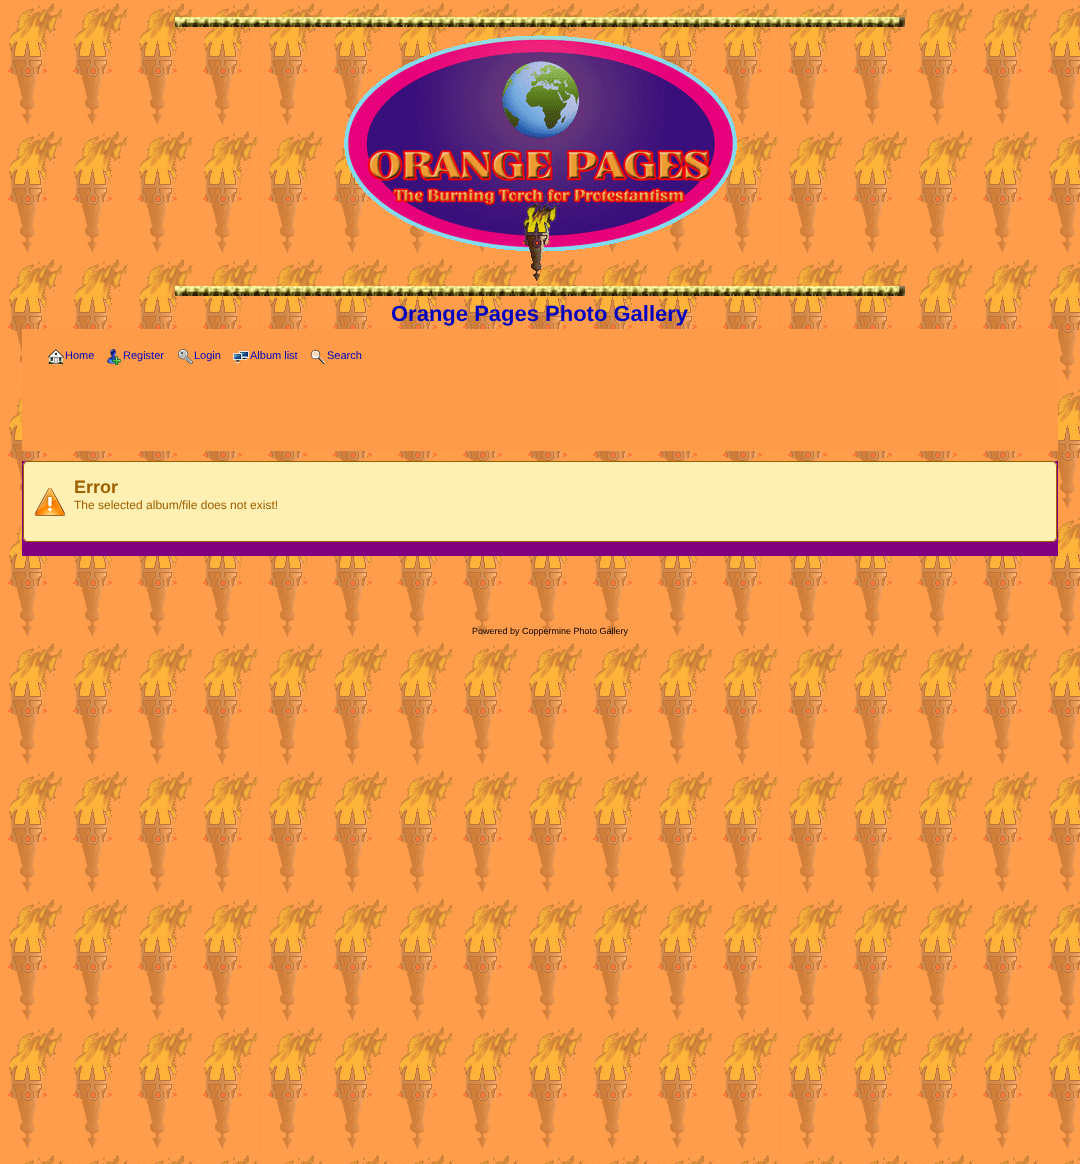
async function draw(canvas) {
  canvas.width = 1080;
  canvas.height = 1164;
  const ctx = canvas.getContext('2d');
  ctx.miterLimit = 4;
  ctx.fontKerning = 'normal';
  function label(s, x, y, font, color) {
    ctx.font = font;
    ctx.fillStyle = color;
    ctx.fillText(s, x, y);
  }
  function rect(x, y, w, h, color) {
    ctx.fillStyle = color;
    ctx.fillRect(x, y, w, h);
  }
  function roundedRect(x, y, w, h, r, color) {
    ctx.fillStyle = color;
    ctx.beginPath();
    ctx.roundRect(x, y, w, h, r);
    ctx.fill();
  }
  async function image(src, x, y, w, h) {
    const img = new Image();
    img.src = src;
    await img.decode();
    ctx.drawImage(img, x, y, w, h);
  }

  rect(0, 0, 1080, 1164, '#fff');
  await image('assets/img1.png', 0, 0, 1080, 1164);
  await image('assets/img2.png', 175, 17, 730, 10);
  await image('assets/img3.png', 344, 35, 393, 246);
  await image('assets/img2.png', 175, 286, 730, 10);
  label('Orange Pages Photo Gallery', 391, 321, 'bold 22px Liberation Sans', '#0000c1');
  rect(22, 329, 1036, 122, '#fe9b49');
  await image('assets/img4.png', 48, 349, 16, 16);
  label('Home', 65, 359, '11px Liberation Sans', '#0000c1');
  await image('assets/img5.png', 107, 349, 14, 16);
  label('Register', 123, 359, '11px Liberation Sans', '#0000c1');
  await image('assets/img6.png', 178, 349, 15, 16);
  label('Login', 194, 359, '11px Liberation Sans', '#0000c1');
  await image('assets/img7.png', 233, 351, 16, 12);
  label('Album list', 250, 359, '11px Liberation Sans', '#0000c1');
  await image('assets/img8.png', 310, 349, 16, 15);
  label('Search', 327, 359, '11px Liberation Sans', '#0000c1');
  rect(22, 461, 1036, 95, '#800080');
  roundedRect(23, 461, 1034, 81, 5, '#feefb3');
  await image('assets/img9.png', 34, 487, 32, 29);
  ctx.beginPath();
  ctx.roundRect(23.5, 461.5, 1033, 80, 4.5);
  ctx.strokeStyle = '#9f6000';
  ctx.stroke();
  label('Error', 74, 493, 'bold 18px Liberation Sans', '#9f6000');
  label('The selected album/file does not exist!', 74, 509, '12px Liberation Sans', '#9f6000');
  label('Powered by Coppermine Photo Gallery', 472, 634, '9px Liberation Sans', '#000');
}

draw(document.querySelector('canvas'));
